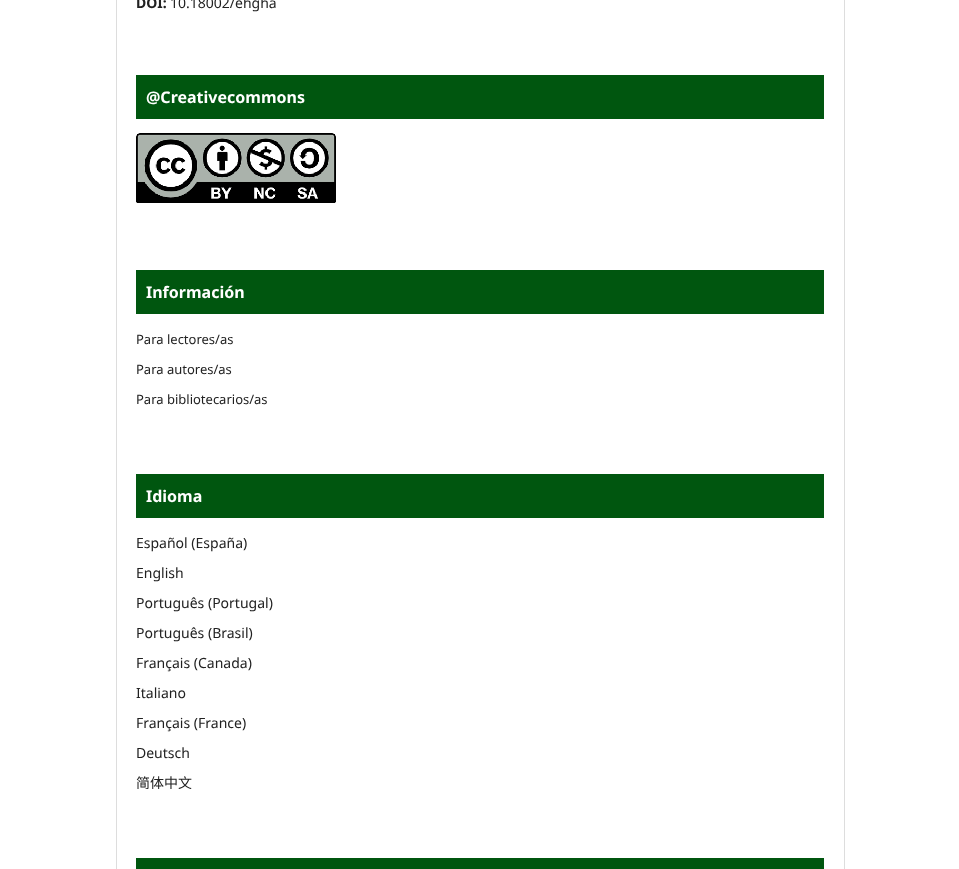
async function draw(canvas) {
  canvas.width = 959;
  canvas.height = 869;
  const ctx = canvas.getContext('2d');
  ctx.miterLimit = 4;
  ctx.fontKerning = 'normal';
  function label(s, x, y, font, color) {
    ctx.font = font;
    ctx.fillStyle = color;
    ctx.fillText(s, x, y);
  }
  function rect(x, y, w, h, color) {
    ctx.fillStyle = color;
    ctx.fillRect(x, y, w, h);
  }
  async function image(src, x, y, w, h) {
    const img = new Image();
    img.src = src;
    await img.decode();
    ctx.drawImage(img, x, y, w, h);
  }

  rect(0, 0, 959, 869, '#fff');
  rect(116, 0, 1, 869, '#ddd');
  rect(844, 0, 1, 869, '#ddd');
  label('DOI:', 136, 8, 'bold 14px Noto Sans', '#212121');
  label('10.18002/ehgha', 170, 8, '14px Noto Sans', '#212121');
  rect(136, 75, 688, 44, '#00560f');
  label('@Creativecommons', 146, 103, 'bold 16px Noto Sans', '#fff');
  await image('assets/img1.png', 136, 133, 200, 70);
  rect(136, 270, 688, 44, '#00560f');
  label('Información', 146, 298, 'bold 16px Noto Sans', '#fff');
  label('Para lectores/as', 136, 344, '13px Noto Sans', '#212121');
  label('Para autores/as', 136, 374, '13px Noto Sans', '#212121');
  label('Para bibliotecarios/as', 136, 404, '13px Noto Sans', '#212121');
  rect(136, 474, 688, 44, '#00560f');
  label('Idioma', 146, 502, 'bold 16px Noto Sans', '#fff');
  label('Español (España)', 136, 548, '14px Noto Sans', '#212121');
  label('English', 136, 578, '14px Noto Sans', '#212121');
  label('Português (Portugal)', 136, 608, '14px Noto Sans', '#212121');
  label('Português (Brasil)', 136, 638, '14px Noto Sans', '#212121');
  label('Français (Canada)', 136, 668, '14px Noto Sans', '#212121');
  label('Italiano', 136, 698, '14px Noto Sans', '#212121');
  label('Français (France)', 136, 728, '14px Noto Sans', '#212121');
  label('Deutsch', 136, 758, '14px Noto Sans', '#212121');
  label('简体中文', 136, 788, '14px Noto Sans CJK SC', '#212121');
  rect(136, 858, 688, 11, '#00560f');
}

draw(document.querySelector('canvas'));
